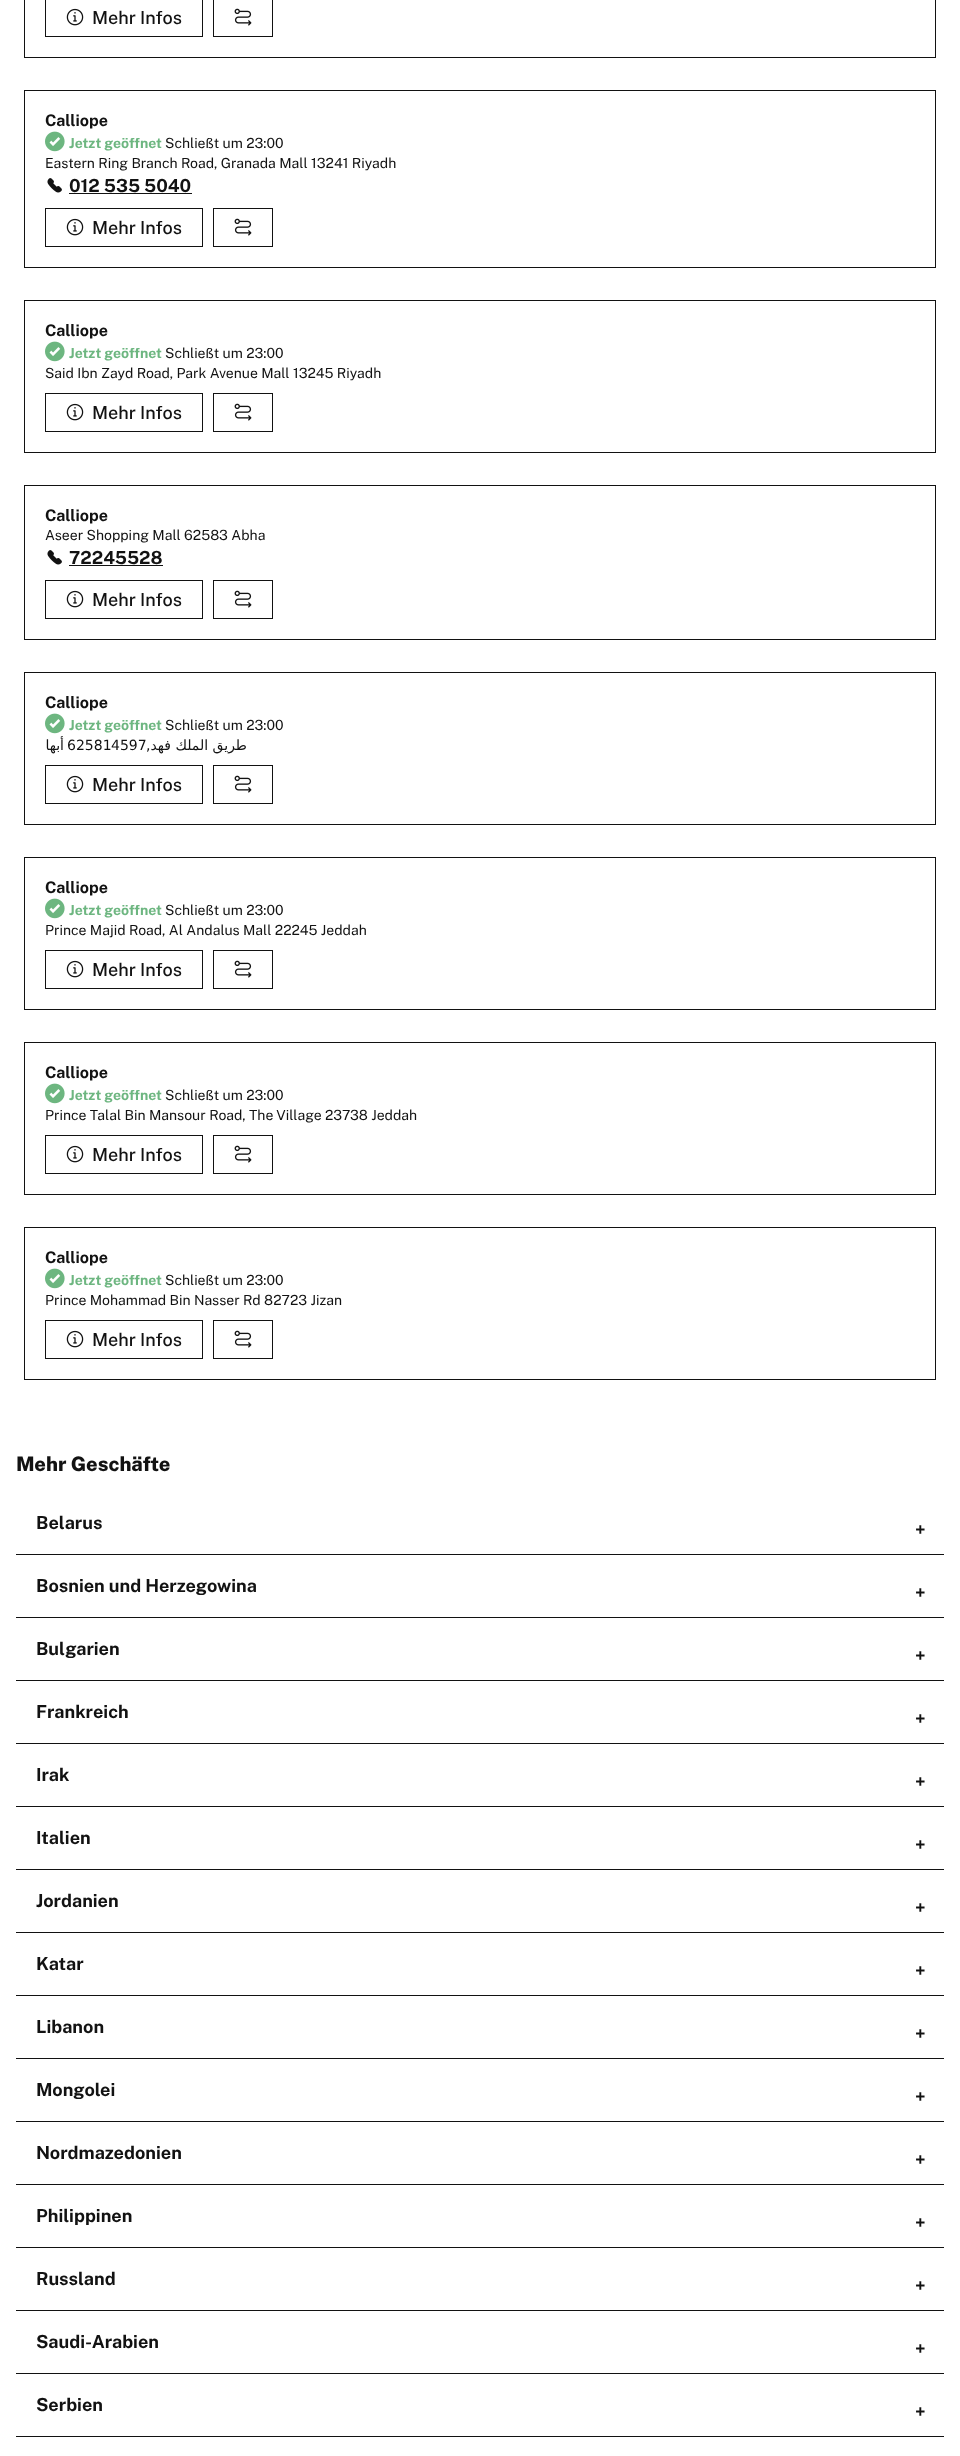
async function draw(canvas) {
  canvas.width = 960;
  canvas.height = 2456;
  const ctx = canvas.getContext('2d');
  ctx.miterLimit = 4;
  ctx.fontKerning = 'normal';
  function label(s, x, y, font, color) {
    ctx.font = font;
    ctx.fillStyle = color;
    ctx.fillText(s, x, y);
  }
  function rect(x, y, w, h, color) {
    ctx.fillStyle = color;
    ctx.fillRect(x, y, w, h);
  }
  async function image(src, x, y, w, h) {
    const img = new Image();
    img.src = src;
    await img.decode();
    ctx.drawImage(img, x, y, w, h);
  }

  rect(0, 0, 960, 2456, '#fff');
  ctx.strokeStyle = '#121212';
  ctx.strokeRect(24.5, -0.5, 911, 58);
  ctx.strokeRect(45.5, -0.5, 157, 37);
  await image('assets/img1.png', 66, 8, 18, 18);
  label('Mehr Infos', 92, 24, '500 18px Public Sans', '#121212');
  ctx.strokeRect(213.5, -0.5, 59, 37);
  await image('assets/img2.png', 234, 8, 18, 18);
  ctx.strokeRect(24.5, 90.5, 911, 177);
  label('Calliope', 45, 126, 'bold 16px Public Sans', '#121212');
  await image('assets/img3.png', 45, 131, 20, 21);
  label('Jetzt geöffnet', 69, 148, 'bold 14px Public Sans', '#6db680');
  label('Schließt um 23:00', 165, 148, '14px Public Sans', '#121212');
  label('Eastern Ring Branch Road, Granada Mall 13241 Riyadh', 45, 168, '14px Public Sans', '#121212');
  await image('assets/img4.png', 47, 178, 15, 15);
  label('012 535 5040', 69, 192, 'bold 18px Public Sans', '#121212');
  rect(69, 193, 123, 1, '#121212');
  ctx.strokeRect(45.5, 208.5, 157, 38);
  await image('assets/img1.png', 66, 218, 18, 18);
  label('Mehr Infos', 92, 234, '500 18px Public Sans', '#121212');
  ctx.strokeRect(213.5, 208.5, 59, 38);
  await image('assets/img2.png', 234, 218, 18, 18);
  ctx.strokeRect(24.5, 300.5, 911, 152);
  label('Calliope', 45, 336, 'bold 16px Public Sans', '#121212');
  await image('assets/img3.png', 45, 341, 20, 21);
  label('Jetzt geöffnet', 69, 358, 'bold 14px Public Sans', '#6db680');
  label('Schließt um 23:00', 165, 358, '14px Public Sans', '#121212');
  label('Said Ibn Zayd Road, Park Avenue Mall 13245 Riyadh', 45, 378, '14px Public Sans', '#121212');
  ctx.strokeRect(45.5, 393.5, 157, 38);
  await image('assets/img1.png', 66, 403, 18, 18);
  label('Mehr Infos', 92, 419, '500 18px Public Sans', '#121212');
  ctx.strokeRect(213.5, 393.5, 59, 38);
  await image('assets/img2.png', 234, 403, 18, 18);
  ctx.strokeRect(24.5, 485.5, 911, 154);
  label('Calliope', 45, 521, 'bold 16px Public Sans', '#121212');
  label('Aseer Shopping Mall 62583 Abha', 45, 540, '14px Public Sans', '#121212');
  await image('assets/img4.png', 47, 550, 15, 15);
  label('72245528', 69, 564, 'bold 18px Public Sans', '#121212');
  rect(69, 565, 94, 1, '#121212');
  ctx.strokeRect(45.5, 580.5, 157, 38);
  await image('assets/img1.png', 66, 590, 18, 18);
  label('Mehr Infos', 92, 606, '500 18px Public Sans', '#121212');
  ctx.strokeRect(213.5, 580.5, 59, 38);
  await image('assets/img2.png', 234, 590, 18, 18);
  ctx.strokeRect(24.5, 672.5, 911, 152);
  label('Calliope', 45, 708, 'bold 16px Public Sans', '#121212');
  await image('assets/img3.png', 45, 713, 20, 21);
  label('Jetzt geöffnet', 69, 730, 'bold 14px Public Sans', '#6db680');
  label('Schließt um 23:00', 165, 730, '14px Public Sans', '#121212');
  ctx.direction = 'rtl';
  label('أبها', 64, 750, '14px DejaVu Sans', '#121212');
  ctx.direction = 'ltr';
  label('62581', 67, 750, '14px DejaVu Sans', '#121212');
  label('4597', 111, 750, '14px DejaVu Sans', '#121212');
  ctx.direction = 'rtl';
  label('طريق الملك فهد,', 247, 750, '14px DejaVu Sans', '#121212');
  ctx.strokeRect(45.5, 765.5, 157, 38);
  await image('assets/img1.png', 66, 775, 18, 18);
  ctx.direction = 'ltr';
  label('Mehr Infos', 92, 791, '500 18px Public Sans', '#121212');
  ctx.strokeRect(213.5, 765.5, 59, 38);
  await image('assets/img2.png', 234, 775, 18, 18);
  ctx.strokeRect(24.5, 857.5, 911, 152);
  label('Calliope', 45, 893, 'bold 16px Public Sans', '#121212');
  await image('assets/img3.png', 45, 898, 20, 21);
  label('Jetzt geöffnet', 69, 915, 'bold 14px Public Sans', '#6db680');
  label('Schließt um 23:00', 165, 915, '14px Public Sans', '#121212');
  label('Prince Majid Road, Al Andalus Mall 22245 Jeddah', 45, 935, '14px Public Sans', '#121212');
  ctx.strokeRect(45.5, 950.5, 157, 38);
  await image('assets/img1.png', 66, 960, 18, 18);
  label('Mehr Infos', 92, 976, '500 18px Public Sans', '#121212');
  ctx.strokeRect(213.5, 950.5, 59, 38);
  await image('assets/img2.png', 234, 960, 18, 18);
  ctx.strokeRect(24.5, 1042.5, 911, 152);
  label('Calliope', 45, 1078, 'bold 16px Public Sans', '#121212');
  await image('assets/img3.png', 45, 1083, 20, 21);
  label('Jetzt geöffnet', 69, 1100, 'bold 14px Public Sans', '#6db680');
  label('Schließt um 23:00', 165, 1100, '14px Public Sans', '#121212');
  label('Prince Talal Bin Mansour Road, The Village 23738 Jeddah', 45, 1120, '14px Public Sans', '#121212');
  ctx.strokeRect(45.5, 1135.5, 157, 38);
  await image('assets/img1.png', 66, 1145, 18, 18);
  label('Mehr Infos', 92, 1161, '500 18px Public Sans', '#121212');
  ctx.strokeRect(213.5, 1135.5, 59, 38);
  await image('assets/img2.png', 234, 1145, 18, 18);
  ctx.strokeRect(24.5, 1227.5, 911, 152);
  label('Calliope', 45, 1263, 'bold 16px Public Sans', '#121212');
  await image('assets/img3.png', 45, 1268, 20, 21);
  label('Jetzt geöffnet', 69, 1285, 'bold 14px Public Sans', '#6db680');
  label('Schließt um 23:00', 165, 1285, '14px Public Sans', '#121212');
  label('Prince Mohammad Bin Nasser Rd 82723 Jizan', 45, 1305, '14px Public Sans', '#121212');
  ctx.strokeRect(45.5, 1320.5, 157, 38);
  await image('assets/img1.png', 66, 1330, 18, 18);
  label('Mehr Infos', 92, 1346, '500 18px Public Sans', '#121212');
  ctx.strokeRect(213.5, 1320.5, 59, 38);
  await image('assets/img2.png', 234, 1330, 18, 18);
  label('Mehr Geschäfte', 16, 1471, '800 20px Public Sans', '#121212');
  rect(16, 1554, 928, 1, '#121212');
  label('Belarus', 36, 1529, 'bold 18px Public Sans', '#121212');
  label('+', 915, 1536, 'bold 18px Public Sans', '#121212');
  rect(16, 1617, 928, 1, '#121212');
  label('Bosnien und Herzegowina', 36, 1592, 'bold 18px Public Sans', '#121212');
  label('+', 915, 1599, 'bold 18px Public Sans', '#121212');
  rect(16, 1680, 928, 1, '#121212');
  label('Bulgarien', 36, 1655, 'bold 18px Public Sans', '#121212');
  label('+', 915, 1662, 'bold 18px Public Sans', '#121212');
  rect(16, 1743, 928, 1, '#121212');
  label('Frankreich', 36, 1718, 'bold 18px Public Sans', '#121212');
  label('+', 915, 1725, 'bold 18px Public Sans', '#121212');
  rect(16, 1806, 928, 1, '#121212');
  label('Irak', 36, 1781, 'bold 18px Public Sans', '#121212');
  label('+', 915, 1788, 'bold 18px Public Sans', '#121212');
  rect(16, 1869, 928, 1, '#121212');
  label('Italien', 36, 1844, 'bold 18px Public Sans', '#121212');
  label('+', 915, 1851, 'bold 18px Public Sans', '#121212');
  rect(16, 1932, 928, 1, '#121212');
  label('Jordanien', 36, 1907, 'bold 18px Public Sans', '#121212');
  label('+', 915, 1914, 'bold 18px Public Sans', '#121212');
  rect(16, 1995, 928, 1, '#121212');
  label('Katar', 36, 1970, 'bold 18px Public Sans', '#121212');
  label('+', 915, 1977, 'bold 18px Public Sans', '#121212');
  rect(16, 2058, 928, 1, '#121212');
  label('Libanon', 36, 2033, 'bold 18px Public Sans', '#121212');
  label('+', 915, 2040, 'bold 18px Public Sans', '#121212');
  rect(16, 2121, 928, 1, '#121212');
  label('Mongolei', 36, 2096, 'bold 18px Public Sans', '#121212');
  label('+', 915, 2103, 'bold 18px Public Sans', '#121212');
  rect(16, 2184, 928, 1, '#121212');
  label('Nordmazedonien', 36, 2159, 'bold 18px Public Sans', '#121212');
  label('+', 915, 2166, 'bold 18px Public Sans', '#121212');
  rect(16, 2247, 928, 1, '#121212');
  label('Philippinen', 36, 2222, 'bold 18px Public Sans', '#121212');
  label('+', 915, 2229, 'bold 18px Public Sans', '#121212');
  rect(16, 2310, 928, 1, '#121212');
  label('Russland', 36, 2285, 'bold 18px Public Sans', '#121212');
  label('+', 915, 2292, 'bold 18px Public Sans', '#121212');
  rect(16, 2373, 928, 1, '#121212');
  label('Saudi-Arabien', 36, 2348, 'bold 18px Public Sans', '#121212');
  label('+', 915, 2355, 'bold 18px Public Sans', '#121212');
  rect(16, 2436, 928, 1, '#121212');
  label('Serbien', 36, 2411, 'bold 18px Public Sans', '#121212');
  label('+', 915, 2418, 'bold 18px Public Sans', '#121212');
}

draw(document.querySelector('canvas'));
